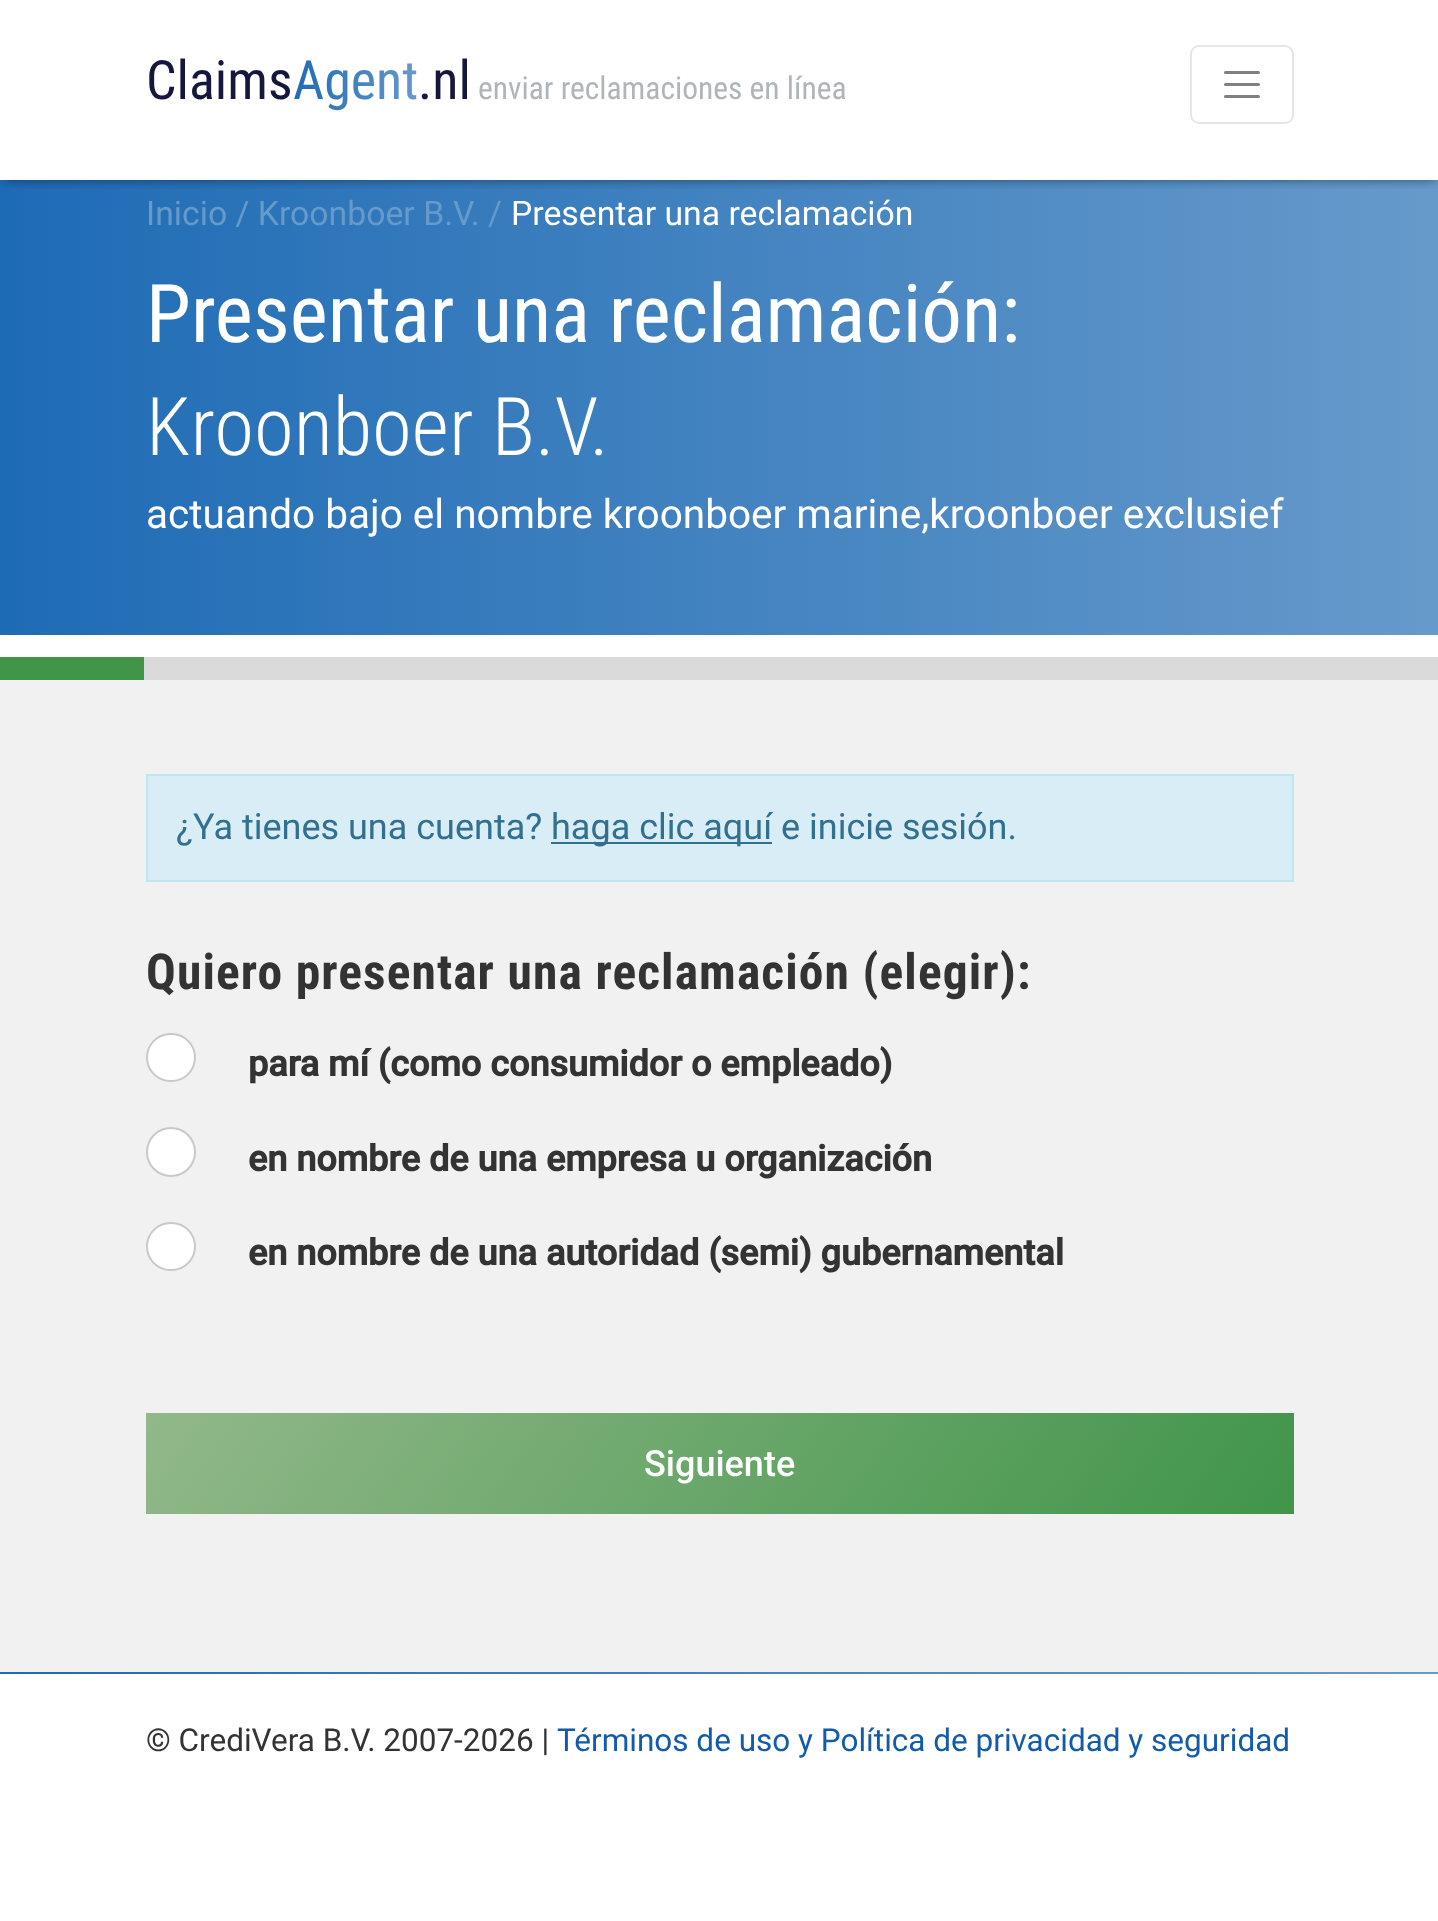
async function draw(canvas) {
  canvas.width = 1438;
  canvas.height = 1921;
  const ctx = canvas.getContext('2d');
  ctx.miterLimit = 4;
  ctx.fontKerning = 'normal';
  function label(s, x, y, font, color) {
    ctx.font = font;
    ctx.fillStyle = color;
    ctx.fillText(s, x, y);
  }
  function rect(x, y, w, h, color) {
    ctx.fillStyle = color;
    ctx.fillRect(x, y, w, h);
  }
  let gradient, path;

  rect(0, 0, 1438, 1921, '#fff');
  gradient = ctx.createLinearGradient(0, 407, 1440, 407);
  gradient.addColorStop(0, '#1e6bb5');
  gradient.addColorStop(1, '#669acb');
  ctx.fillStyle = gradient;
  ctx.fillRect(0, 180, 1438, 455);
  ctx.save();
  ctx.beginPath();
  ctx.rect(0, 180, 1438, 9);
  ctx.clip();
  ctx.fillStyle = '#00000078';
  ctx.filter = 'blur(5.5px)';
  ctx.beginPath();
  ctx.rect(5, 9, 1431, 171);
  ctx.fill();
  ctx.filter = 'none';
  ctx.restore();
  label('Claims', 146, 99, '54px Roboto Condensed', '#16173c');
  gradient = ctx.createLinearGradient(293, 81, 418, 81);
  gradient.addColorStop(0, '#1e6bb5');
  gradient.addColorStop(1, '#669acb');
  ctx.fillStyle = gradient;
  ctx.fillText('Agent', 293, 99);
  label('.nl', 418, 99, '54px Roboto Condensed', '#16173c');
  label('enviar reclamaciones en línea', 478, 99, '31.5px Roboto Condensed', '#afb5ba');
  ctx.beginPath();
  ctx.roundRect(1191, 46, 102, 77, 8);
  ctx.strokeStyle = '#e6e6e6';
  ctx.lineWidth = 2;
  ctx.stroke();
  path = new Path2D('M1225.5 72.5H1258.5M1225.5 84.5H1258.5M1225.5 96.5H1258.5');
  ctx.strokeStyle = '#808080';
  ctx.lineWidth = 3;
  ctx.lineCap = 'round';
  ctx.stroke(path);
  label('Inicio / Kroonboer B.V. /', 146, 225, '33.75px Roboto', '#669acb');
  label('Presentar una reclamación', 511, 225, '33.75px Roboto', '#fff');
  label('Presentar una reclamación:', 146, 342, '81px Roboto Condensed', '#fff');
  label('Kroonboer B.V.', 146, 455, '300 81px Roboto Condensed', '#fff');
  label('actuando bajo el nombre kroonboer marine,kroonboer exclusief', 146, 528, '40.5px Roboto', '#fff');
  rect(144, 657, 1294, 23, '#dadada');
  rect(0, 657, 144, 23, '#409549');
  rect(0, 680, 1438, 992, '#f1f1f1');
  ctx.fillStyle = '#d9edf7';
  ctx.beginPath();
  ctx.rect(147, 775, 1146, 106);
  ctx.fill();
  ctx.strokeStyle = '#bce8f1';
  ctx.lineWidth = 2;
  ctx.stroke();
  label('¿Ya tienes una cuenta?', 176, 839, '36px Roboto', '#31708f');
  rect(551, 842, 221, 2, '#31708f');
  label('haga clic aquí e inicie sesión.', 551, 839, '36px Roboto', '#31708f');
  ctx.letterSpacing = '1.1px';
  label('Quiero presentar una reclamación (elegir):', 146, 989, 'bold 49.5px Roboto Condensed', '#333');
  ctx.fillStyle = '#fff';
  ctx.beginPath();
  ctx.roundRect(147, 1034, 48, 47, 23.5);
  ctx.fill();
  ctx.strokeStyle = '#c9c9c9';
  ctx.stroke();
  ctx.letterSpacing = '0px';
  label('para mí (como consumidor o empleado)', 248, 1076, 'bold 36px Roboto', '#333');
  ctx.fillStyle = '#fff';
  ctx.beginPath();
  ctx.arc(171, 1152, 24, 0, 2 * Math.PI);
  ctx.fill();
  ctx.stroke();
  label('en nombre de una empresa u organización', 248, 1171, 'bold 36px Roboto', '#333');
  ctx.fillStyle = '#fff';
  ctx.beginPath();
  ctx.roundRect(147, 1223, 48, 47, 23.5);
  ctx.fill();
  ctx.stroke();
  label('en nombre de una autoridad (semi) gubernamental', 248, 1265, 'bold 36px Roboto', '#333');
  gradient = ctx.createLinearGradient(314, 1176, 1126, 1751);
  gradient.addColorStop(0, '#92b88a');
  gradient.addColorStop(1, '#409549');
  ctx.fillStyle = gradient;
  ctx.fillRect(146, 1413, 1148, 101);
  label('Siguiente', 644, 1476, '500 36px Roboto', '#fff');
  gradient = ctx.createLinearGradient(0, 1673, 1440, 1673);
  gradient.addColorStop(0, '#1e6bb5');
  gradient.addColorStop(1, '#669acb');
  ctx.fillStyle = gradient;
  ctx.fillRect(0, 1672, 1438, 2);
  label('© CrediVera B.V. 2007-2026 |', 146, 1751, '31.5px Roboto', '#333');
  label('Términos de uso y Política de privacidad y seguridad', 557, 1751, '31.5px Roboto', '#115baa');
}

draw(document.querySelector('canvas'));
